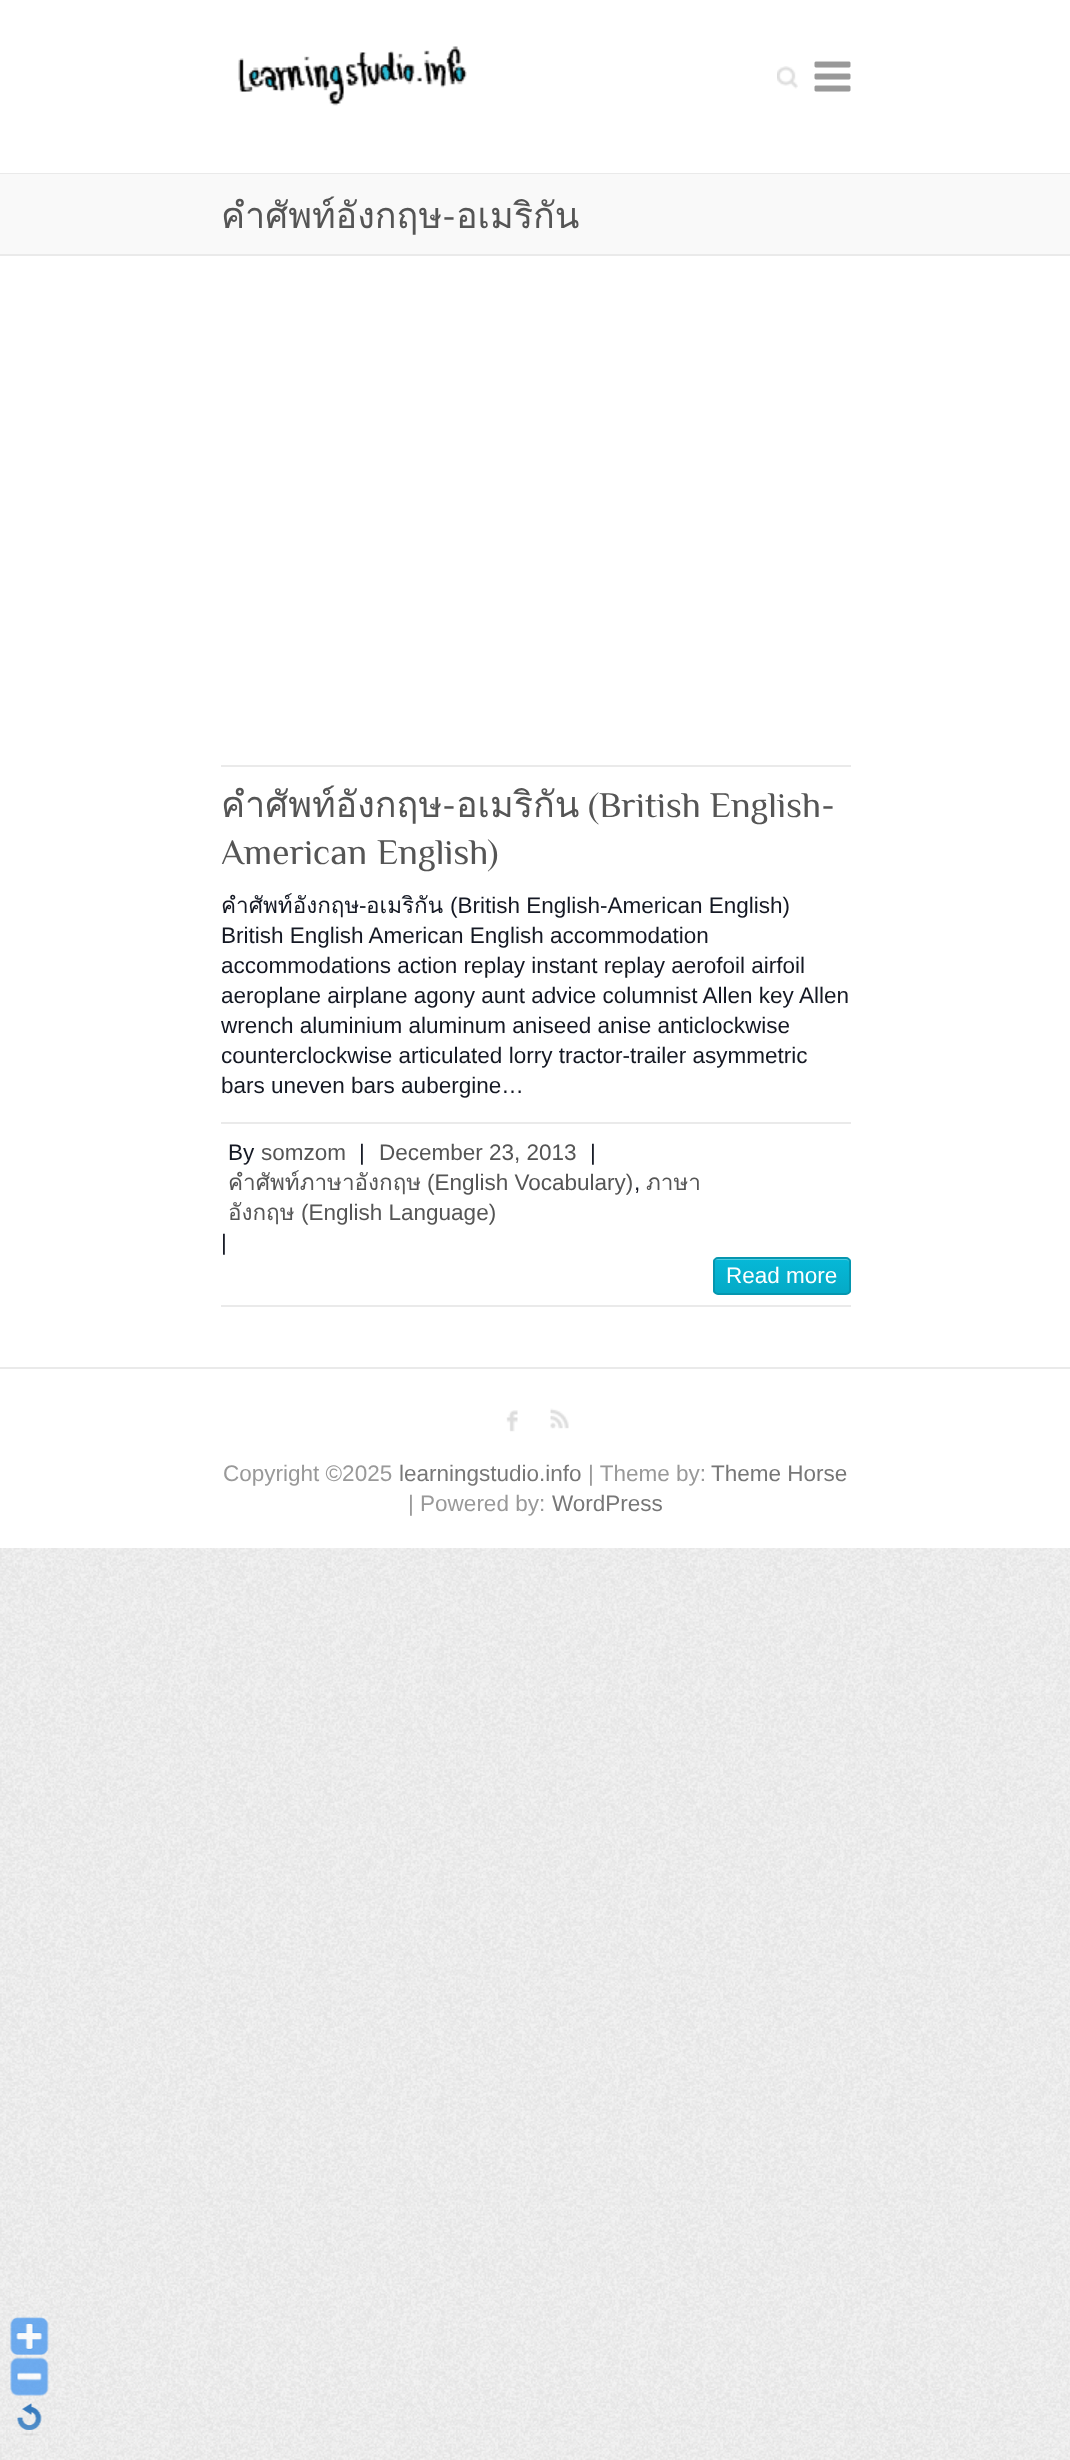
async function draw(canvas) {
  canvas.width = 1070;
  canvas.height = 2460;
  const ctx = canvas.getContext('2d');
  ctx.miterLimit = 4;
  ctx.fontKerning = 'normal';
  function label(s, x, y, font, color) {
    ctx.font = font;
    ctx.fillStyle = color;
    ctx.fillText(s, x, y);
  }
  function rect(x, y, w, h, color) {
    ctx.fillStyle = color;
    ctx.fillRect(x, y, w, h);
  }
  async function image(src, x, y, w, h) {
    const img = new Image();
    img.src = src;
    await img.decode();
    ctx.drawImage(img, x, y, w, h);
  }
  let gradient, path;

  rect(0, 0, 1070, 2460, '#fff');
  await image('assets/img1.png', 0, 1548, 1070, 912);
  await image('assets/img2.png', 238, 46, 229, 60);
  await image('assets/img3.png', 777, 66, 21, 23);
  await image('assets/img4.png', 814, 61, 37, 31);
  rect(0, 173, 1070, 1, '#eaeaea');
  rect(0, 174, 1070, 80, '#f9f9f9');
  rect(0, 254, 1070, 2, '#eaeaea');
  label('คำศัพท์อังกฤษ', 221, 228, '36px Loma', '#555');
  label('-', 442, 228, '36px Philosopher', '#555');
  label('อเมริกัน', 456, 228, '36px Loma', '#555');
  rect(221, 765, 630, 2, '#eaeaea');
  label('คำศัพท์อังกฤษ', 221, 817, '36px Loma', '#555');
  label('-', 442, 817, '36px Philosopher', '#555');
  label('อเมริกัน', 456, 817, '36px Loma', '#555');
  label('(British English-', 588, 817, '36px Philosopher', '#555');
  ctx.wordSpacing = '1px';
  label('American English)', 221, 864, '36px Philosopher', '#555');
  ctx.save();
  ctx.beginPath();
  ctx.rect(221, 890, 630, 232);
  ctx.clip();
  ctx.wordSpacing = '0px';
  label('คำศัพท์อังกฤษ', 221, 913, '22.5px Loma', '#141823');
  ctx.restore();
  ctx.wordSpacing = '0px';
  label('-', 359, 913, '22.5px Liberation Sans', '#141823');
  label('อเมริกัน', 366, 913, '22.5px Loma', '#141823');
  label('(British English-American English)', 450, 913, '22.5px Liberation Sans', '#141823');
  label('British English American English accommodation', 221, 943, '22.5px Liberation Sans', '#141823');
  label('accommodations action replay instant replay aerofoil airfoil', 221, 973, '22.5px Liberation Sans', '#141823');
  label('aeroplane airplane agony aunt advice columnist Allen key Allen', 221, 1003, '22.5px Liberation Sans', '#141823');
  label('wrench aluminium aluminum aniseed anise anticlockwise', 221, 1033, '22.5px Liberation Sans', '#141823');
  label('counterclockwise articulated lorry tractor-trailer asymmetric', 221, 1063, '22.5px Liberation Sans', '#141823');
  label('bars uneven bars aubergine…', 221, 1093, '22.5px Liberation Sans', '#141823');
  rect(221, 1122, 630, 2, '#eaeaea');
  rect(221, 1305, 630, 2, '#eaeaea');
  label('By', 228, 1160, '22.5px Liberation Sans', '#141823');
  label('somzom', 261, 1160, '22.5px Liberation Sans', '#555');
  label('|', 359, 1160, '22.5px Liberation Sans', '#141823');
  label('December 23, 2013', 379, 1160, '22.5px Liberation Sans', '#555');
  label('|', 590, 1160, '22.5px Liberation Sans', '#141823');
  label('คำศัพท์ภาษาอังกฤษ', 228, 1190, '22.5px Loma', '#555');
  label('(English Vocabulary)', 427, 1190, '22.5px Liberation Sans', '#555');
  label(',', 634, 1190, '22.5px Liberation Sans', '#141823');
  label('ภาษา', 646, 1190, '22.5px Loma', '#555');
  label('อังกฤษ', 228, 1220, '22.5px Loma', '#555');
  label('(English Language)', 301, 1220, '22.5px Liberation Sans', '#555');
  label('|', 221, 1250, '22.5px Liberation Sans', '#141823');
  ctx.save();
  ctx.beginPath();
  ctx.roundRect(713, 1257, 138, 38, 5);
  ctx.clip();
  gradient = ctx.createLinearGradient(782, 1259, 782, 1293);
  gradient.addColorStop(0, '#06b8d7');
  gradient.addColorStop(1, '#05aac6');
  ctx.fillStyle = gradient;
  ctx.fillRect(713, 1259, 138, 34);
  ctx.restore();
  ctx.fillStyle = '#51cde3';
  path = new Path2D('M717 1260H846C848 1260 849 1261 849 1263C849 1261 849 1259 847 1259H716C714 1259 714 1261 714 1263C714 1261 715 1260 717 1260Z');
  ctx.fill(path);
  ctx.beginPath();
  ctx.roundRect(714, 1258, 136, 36, 4);
  ctx.strokeStyle = '#0596af';
  ctx.lineWidth = 2;
  ctx.stroke();
  label('Read more', 726, 1283, '22.5px Liberation Sans', '#fff');
  rect(0, 1367, 1070, 2, '#eaeaea');
  await image('assets/img5.png', 506, 1410, 12, 22);
  await image('assets/img6.png', 550, 1408, 19, 21);
  label('Copyright ©2025', 223, 1481, '22.5px Liberation Sans', '#999');
  label('learningstudio.info', 399, 1481, '22.5px Liberation Sans', '#777');
  label('| Theme by:', 588, 1481, '22.5px Liberation Sans', '#999');
  label('Theme Horse', 711, 1481, '22.5px Liberation Sans', '#777');
  label('| Powered by:', 408, 1511, '22.5px Liberation Sans', '#999');
  label('WordPress', 552, 1511, '22.5px Liberation Sans', '#777');
  await image('assets/img7.png', 10, 2317, 39, 38);
  await image('assets/img8.png', 10, 2357, 39, 39);
  await image('assets/img9.png', 17, 2403, 25, 33);
}

draw(document.querySelector('canvas'));
